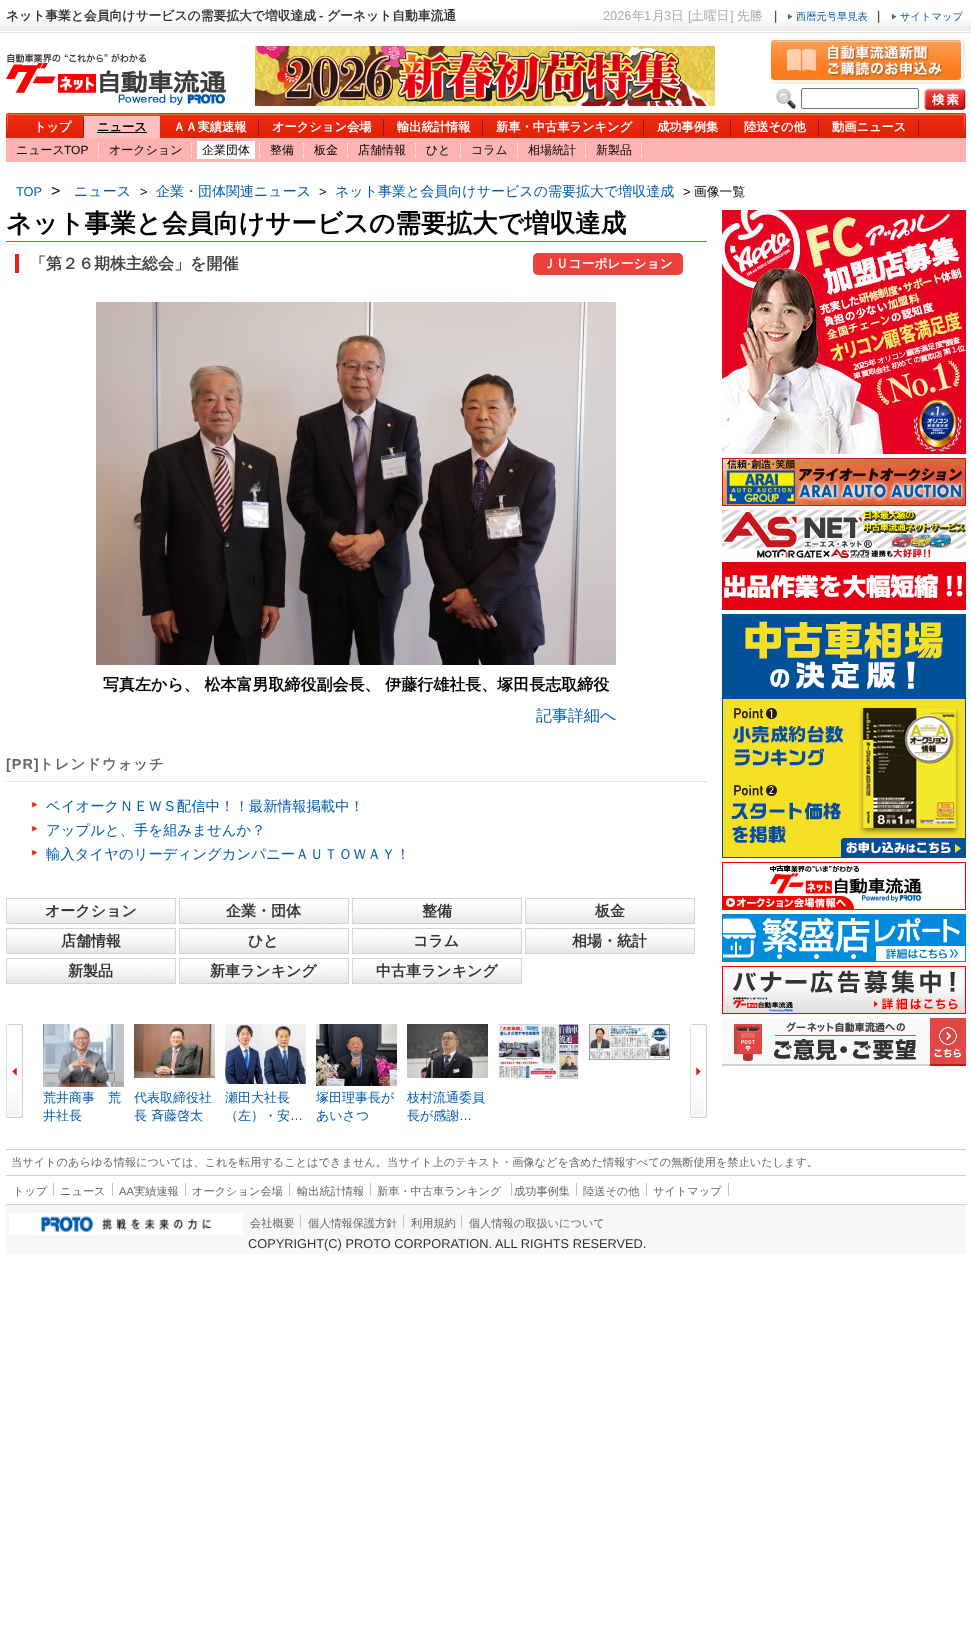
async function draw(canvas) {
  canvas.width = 971;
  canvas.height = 1638;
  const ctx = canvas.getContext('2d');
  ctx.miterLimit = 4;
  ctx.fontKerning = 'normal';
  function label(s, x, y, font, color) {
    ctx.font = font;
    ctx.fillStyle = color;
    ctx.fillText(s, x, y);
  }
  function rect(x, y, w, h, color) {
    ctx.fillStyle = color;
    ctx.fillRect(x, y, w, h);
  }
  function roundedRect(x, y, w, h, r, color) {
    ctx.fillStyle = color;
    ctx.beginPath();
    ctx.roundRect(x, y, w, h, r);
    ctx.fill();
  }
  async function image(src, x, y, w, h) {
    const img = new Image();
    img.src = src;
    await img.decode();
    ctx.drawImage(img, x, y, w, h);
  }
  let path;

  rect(0, 0, 971, 1638, '#fff');
  await image('assets/img1.png', 0, 19, 971, 14);
  label('ネット事業と会員向けサービスの需要拡大で増収達成', 6, 20, 'bold 12.8px WenQuanYi Zen Hei', '#333');
  label('-', 319, 20, 'bold 12.8px Liberation Sans', '#333');
  label('グーネット自動車流通', 327, 20, 'bold 12.8px WenQuanYi Zen Hei', '#333');
  label('2026', 603, 20, '12.8px Liberation Sans', '#aaa');
  label('年', 632, 20, '500 12.8px WenQuanYi Zen Hei', '#aaa');
  label('1', 644, 20, '12.8px Liberation Sans', '#aaa');
  label('月', 652, 20, '500 12.8px WenQuanYi Zen Hei', '#aaa');
  label('3', 664, 20, '12.8px Liberation Sans', '#aaa');
  label('日', 671, 20, '500 12.8px WenQuanYi Zen Hei', '#aaa');
  label('[', 688, 20, '12.8px Liberation Sans', '#aaa');
  label('土曜日', 691, 20, '500 12.8px WenQuanYi Zen Hei', '#aaa');
  label(']', 730, 20, '12.8px Liberation Sans', '#aaa');
  label('先勝', 737, 20, '500 12.8px WenQuanYi Zen Hei', '#aaa');
  label('|', 774, 20, '12.8px Liberation Sans', '#333');
  await image('assets/img2.png', 787, 13, 6, 7);
  label('西暦元号早見表', 796, 20, '500 10.25px WenQuanYi Zen Hei', '#005bac');
  label('|', 877, 20, '12.8px Liberation Sans', '#333');
  await image('assets/img2.png', 891, 13, 6, 7);
  label('サイトマップ', 900, 20, '500 10.25px WenQuanYi Zen Hei', '#005bac');
  await image('assets/img3.png', 6, 53, 220, 52);
  await image('assets/img4.png', 255, 46, 460, 60);
  await image('assets/img5.png', 769, 37, 197, 48);
  await image('assets/img6.png', 776, 89, 20, 20);
  ctx.beginPath();
  ctx.roundRect(801.5, 88.5, 117, 20, 1.5);
  ctx.strokeStyle = '#767676';
  ctx.stroke();
  await image('assets/img7.png', 924, 88, 42, 22);
  await image('assets/img8.png', 6, 113, 960, 25);
  rect(83, 119, 1, 17, '#a91402');
  label('トップ', 34, 131, 'bold 12.25px WenQuanYi Zen Hei', '#fff');
  rect(84, 116, 76, 22, '#ffbfbf');
  label('ニュース', 97, 131, 'bold 12.25px WenQuanYi Zen Hei', '#000');
  rect(97, 132, 50, 1, '#000');
  rect(258, 119, 1, 17, '#a91402');
  label('ＡＡ実績速報', 173, 131, 'bold 12.25px WenQuanYi Zen Hei', '#fff');
  rect(383, 119, 1, 17, '#a91402');
  label('オークション会場', 272, 131, 'bold 12.25px WenQuanYi Zen Hei', '#fff');
  rect(482, 119, 1, 17, '#a91402');
  label('輸出統計情報', 397, 131, 'bold 12.25px WenQuanYi Zen Hei', '#fff');
  rect(643, 119, 1, 17, '#a91402');
  label('新車・中古車ランキング', 496, 131, 'bold 12.25px WenQuanYi Zen Hei', '#fff');
  rect(730, 119, 1, 17, '#a91402');
  label('成功事例集', 657, 131, 'bold 12.25px WenQuanYi Zen Hei', '#fff');
  rect(818, 119, 1, 17, '#a91402');
  label('陸送その他', 744, 131, 'bold 12.25px WenQuanYi Zen Hei', '#fff');
  rect(918, 119, 1, 17, '#a91402');
  label('動画ニュース', 832, 131, 'bold 12.25px WenQuanYi Zen Hei', '#fff');
  rect(6, 138, 960, 24, '#ffb2b2');
  await image('assets/img9.png', 98, 143, 1, 15);
  label('ニュース', 16, 154, '500 12px WenQuanYi Zen Hei', '#000');
  label('TOP', 64, 154, '12px Liberation Sans', '#000');
  await image('assets/img9.png', 191, 143, 1, 15);
  label('オークション', 109, 154, '500 12px WenQuanYi Zen Hei', '#000');
  await image('assets/img9.png', 259, 143, 1, 15);
  rect(197, 141, 58, 18, '#fefefe');
  label('企業団体', 202, 154, '500 12px WenQuanYi Zen Hei', '#000');
  await image('assets/img9.png', 303, 143, 1, 15);
  label('整備', 270, 154, '500 12px WenQuanYi Zen Hei', '#000');
  await image('assets/img9.png', 347, 143, 1, 15);
  label('板金', 314, 154, '500 12px WenQuanYi Zen Hei', '#000');
  await image('assets/img9.png', 415, 143, 1, 15);
  label('店舗情報', 358, 154, '500 12px WenQuanYi Zen Hei', '#000');
  await image('assets/img9.png', 460, 143, 1, 15);
  label('ひと', 426, 154, '500 12px WenQuanYi Zen Hei', '#000');
  await image('assets/img9.png', 517, 143, 1, 15);
  label('コラム', 471, 154, '500 12px WenQuanYi Zen Hei', '#000');
  await image('assets/img9.png', 585, 143, 1, 15);
  label('相場統計', 528, 154, '500 12px WenQuanYi Zen Hei', '#000');
  await image('assets/img9.png', 641, 143, 1, 15);
  label('新製品', 596, 154, '500 12px WenQuanYi Zen Hei', '#000');
  label('TOP', 16, 196, '12.8px Liberation Sans', '#005bac');
  label('>', 51, 196, '16px Liberation Sans', '#000');
  label('ニュース', 74, 196, '500 14px WenQuanYi Zen Hei', '#005bac');
  label('>', 140, 196, '12.8px Liberation Sans', '#000');
  label('企業・団体関連ニュース', 156, 196, '500 14px WenQuanYi Zen Hei', '#005bac');
  label('>', 319, 196, '12.8px Liberation Sans', '#000');
  label('ネット事業と会員向けサービスの需要拡大で増収達成', 335, 196, '500 14px WenQuanYi Zen Hei', '#005bac');
  label('>', 683, 196, '12.8px Liberation Sans', '#000');
  label('画像一覧', 694, 196, '500 12.8px WenQuanYi Zen Hei', '#000');
  rect(6, 241, 701, 1, '#ed413d');
  label('ネット事業と会員向けサービスの需要拡大で増収達成', 6, 232, 'bold 25.6px WenQuanYi Zen Hei', '#000');
  rect(15, 254, 4, 19, '#ed1b24');
  label('「第２６期株主総会」を開催', 30, 269, 'bold 16px WenQuanYi Zen Hei', '#444');
  roundedRect(533, 253, 150, 22, 5, '#ed413d');
  label('ＪＵコーポレーション', 543, 268, 'bold 12.8px WenQuanYi Zen Hei', '#fff');
  await image('assets/img10.png', 96, 302, 520, 363);
  label('写真左から、 松本富男取締役副会長、 伊藤行雄社長、塚田長志取締役', 103, 690, 'bold 16px WenQuanYi Zen Hei', '#000');
  label('記事詳細へ', 536, 721, '500 16px WenQuanYi Zen Hei', '#005bac');
  path = new Path2D('M6 781.5H707');
  ctx.strokeStyle = '#ccc';
  ctx.setLineDash([1, 1]);
  ctx.stroke(path);
  ctx.letterSpacing = '1px';
  label('[PR]', 6, 769, 'bold 14.4px Liberation Sans', '#666');
  label('トレンドウォッチ', 39, 769, 'bold 14.4px WenQuanYi Zen Hei', '#666');
  await image('assets/img11.png', 31, 801, 7, 7);
  ctx.letterSpacing = '0px';
  label('ベイオークＮＥＷＳ配信中！！最新情報掲載中！', 46, 811, '500 14.4px WenQuanYi Zen Hei', '#005bac');
  await image('assets/img11.png', 31, 825, 7, 7);
  label('アップルと、手を組みませんか？', 46, 835, '500 14.4px WenQuanYi Zen Hei', '#005bac');
  await image('assets/img11.png', 31, 849, 7, 7);
  label('輸入タイヤのリーディングカンパニーＡＵＴＯＷＡＹ！', 46, 859, '500 14.4px WenQuanYi Zen Hei', '#005bac');
  await image('assets/img12.png', 6, 898, 170, 26);
  label('オークション', 45, 916, 'bold 15px WenQuanYi Zen Hei', '#333');
  await image('assets/img12.png', 179, 898, 170, 26);
  label('企業・団体', 226, 916, 'bold 15px WenQuanYi Zen Hei', '#333');
  await image('assets/img12.png', 352, 898, 170, 26);
  label('整備', 422, 916, 'bold 15px WenQuanYi Zen Hei', '#333');
  await image('assets/img12.png', 525, 898, 170, 26);
  label('板金', 595, 916, 'bold 15px WenQuanYi Zen Hei', '#333');
  await image('assets/img12.png', 6, 928, 170, 26);
  label('店舗情報', 61, 946, 'bold 15px WenQuanYi Zen Hei', '#333');
  await image('assets/img12.png', 179, 928, 170, 26);
  label('ひと', 248, 946, 'bold 15px WenQuanYi Zen Hei', '#333');
  await image('assets/img12.png', 352, 928, 170, 26);
  label('コラム', 413, 946, 'bold 15px WenQuanYi Zen Hei', '#333');
  await image('assets/img12.png', 525, 928, 170, 26);
  label('相場・統計', 572, 946, 'bold 15px WenQuanYi Zen Hei', '#333');
  await image('assets/img12.png', 6, 958, 170, 26);
  label('新製品', 68, 976, 'bold 15px WenQuanYi Zen Hei', '#333');
  await image('assets/img12.png', 179, 958, 170, 26);
  label('新車ランキング', 210, 976, 'bold 15px WenQuanYi Zen Hei', '#333');
  await image('assets/img12.png', 352, 958, 170, 26);
  label('中古車ランキング', 376, 976, 'bold 15px WenQuanYi Zen Hei', '#333');
  await image('assets/img13.png', 6, 1024, 17, 94);
  await image('assets/img14.png', 43, 1024, 81, 63);
  await image('assets/img15.png', 134, 1024, 81, 54);
  await image('assets/img16.png', 225, 1024, 81, 60);
  await image('assets/img17.png', 316, 1024, 81, 62);
  await image('assets/img18.png', 407, 1024, 81, 54);
  await image('assets/img19.png', 498, 1024, 81, 55);
  await image('assets/img20.png', 589, 1024, 81, 36);
  label('荒井商事　荒', 43, 1102, '500 13px WenQuanYi Zen Hei', '#005bac');
  label('井社長', 43, 1120, '500 13px WenQuanYi Zen Hei', '#005bac');
  label('代表取締役社', 134, 1102, '500 13px WenQuanYi Zen Hei', '#005bac');
  label('長 斉藤啓太', 134, 1120, '500 13px WenQuanYi Zen Hei', '#005bac');
  label('瀬田大社長', 225, 1102, '500 13px WenQuanYi Zen Hei', '#005bac');
  label('（左）・安', 225, 1120, '500 13px WenQuanYi Zen Hei', '#005bac');
  label('…', 290, 1120, '13px Liberation Sans', '#005bac');
  label('塚田理事長が', 316, 1102, '500 13px WenQuanYi Zen Hei', '#005bac');
  label('あいさつ', 316, 1120, '500 13px WenQuanYi Zen Hei', '#005bac');
  label('枝村流通委員', 407, 1102, '500 13px WenQuanYi Zen Hei', '#005bac');
  label('長が感謝', 407, 1120, '500 13px WenQuanYi Zen Hei', '#005bac');
  label('…', 459, 1120, '13px Liberation Sans', '#005bac');
  await image('assets/img21.png', 690, 1024, 17, 94);
  await image('assets/img22.png', 722, 210, 244, 244);
  await image('assets/img23.png', 722, 458, 244, 48);
  await image('assets/img24.png', 722, 510, 244, 48);
  await image('assets/img25.png', 722, 562, 244, 48);
  await image('assets/img26.png', 722, 614, 244, 244);
  await image('assets/img27.png', 722, 862, 244, 48);
  await image('assets/img28.png', 722, 914, 244, 48);
  await image('assets/img29.png', 722, 966, 244, 48);
  await image('assets/img30.png', 722, 1018, 244, 48);
  rect(6, 1149, 960, 1, '#cfcfcf');
  label('当サイトのあらゆる情報については、これを転用することはできません。当サイト上のテキスト・画像などを含めた情報すべての無断使用を禁止いたします。', 11, 1166, '500 11.2px WenQuanYi Zen Hei', '#666');
  rect(6, 1175, 960, 1, '#cfcfcf');
  label('トップ', 13, 1195, '500 11.2px WenQuanYi Zen Hei', '#666');
  rect(53, 1183, 1, 13, '#c3c3c3');
  label('ニュース', 60, 1195, '500 11.2px WenQuanYi Zen Hei', '#666');
  rect(112, 1183, 1, 13, '#c3c3c3');
  label('AA', 119, 1195, '11.2px Liberation Sans', '#666');
  label('実績速報', 134, 1195, '500 11.2px WenQuanYi Zen Hei', '#666');
  rect(185, 1183, 1, 13, '#c3c3c3');
  label('オークション会場', 192, 1195, '500 11.2px WenQuanYi Zen Hei', '#666');
  rect(289, 1183, 1, 13, '#c3c3c3');
  label('輸出統計情報', 297, 1195, '500 11.2px WenQuanYi Zen Hei', '#666');
  rect(370, 1183, 1, 13, '#c3c3c3');
  label('新車・中古車ランキング', 377, 1195, '500 11.2px WenQuanYi Zen Hei', '#666');
  rect(511, 1183, 1, 13, '#c3c3c3');
  label('成功事例集', 514, 1195, '500 11.2px WenQuanYi Zen Hei', '#666');
  rect(576, 1183, 1, 13, '#c3c3c3');
  label('陸送その他', 583, 1195, '500 11.2px WenQuanYi Zen Hei', '#666');
  rect(646, 1183, 1, 13, '#c3c3c3');
  label('サイトマップ', 653, 1195, '500 11.2px WenQuanYi Zen Hei', '#666');
  rect(728, 1183, 1, 13, '#c3c3c3');
  rect(6, 1205, 960, 49, '#f7f7f7');
  rect(6, 1204, 960, 1, '#cfcfcf');
  await image('assets/img31.png', 9, 1213, 234, 22);
  label('会社概要', 250, 1227, '500 11.2px WenQuanYi Zen Hei', '#666');
  rect(300, 1215, 1, 13, '#c3c3c3');
  label('個人情報保護方針', 308, 1227, '500 11.2px WenQuanYi Zen Hei', '#666');
  rect(403, 1215, 1, 13, '#c3c3c3');
  label('利用規約', 411, 1227, '500 11.2px WenQuanYi Zen Hei', '#666');
  rect(461, 1215, 1, 13, '#c3c3c3');
  label('個人情報の取扱いについて', 469, 1227, '500 11.2px WenQuanYi Zen Hei', '#666');
  label('COPYRIGHT(C) PROTO CORPORATION. ALL RIGHTS RESERVED.', 248, 1248, '12.8px Liberation Sans', '#333');
}

draw(document.querySelector('canvas'));
